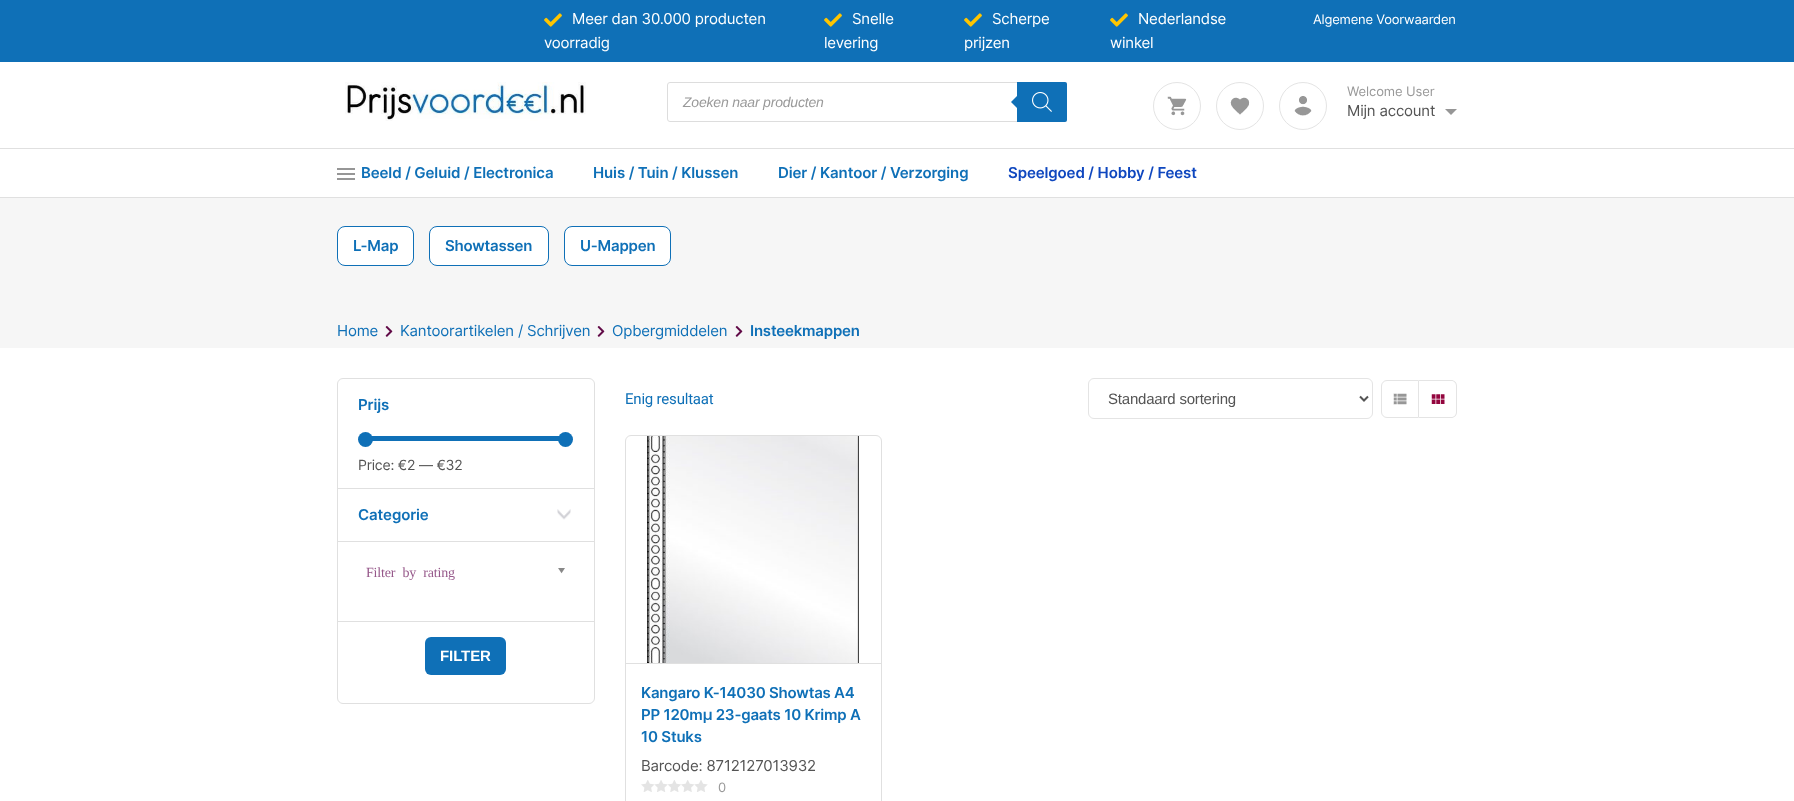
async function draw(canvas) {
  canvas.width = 1794;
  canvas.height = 801;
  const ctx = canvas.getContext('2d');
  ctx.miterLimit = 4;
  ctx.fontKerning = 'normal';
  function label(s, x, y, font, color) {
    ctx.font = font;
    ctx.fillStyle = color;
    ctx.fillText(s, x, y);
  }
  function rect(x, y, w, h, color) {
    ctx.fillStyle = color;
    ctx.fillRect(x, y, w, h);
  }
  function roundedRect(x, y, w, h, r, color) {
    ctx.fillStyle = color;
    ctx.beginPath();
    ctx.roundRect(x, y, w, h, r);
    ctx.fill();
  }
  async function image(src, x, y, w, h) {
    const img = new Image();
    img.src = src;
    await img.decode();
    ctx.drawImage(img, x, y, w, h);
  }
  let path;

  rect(0, 0, 1794, 801, '#fff');
  rect(0, 0, 1794, 62, '#0f70b7');
  await image('assets/img1.png', 544, 13, 18, 14);
  ctx.letterSpacing = '-0.2px';
  label('Meer dan 30.000 producten', 572, 24, '15px Inter', '#fff');
  label('voorradig', 544, 48, '15px Inter', '#fff');
  await image('assets/img1.png', 824, 13, 18, 14);
  label('Snelle', 852, 24, '15px Inter', '#fff');
  label('levering', 824, 48, '15px Inter', '#fff');
  await image('assets/img1.png', 964, 13, 18, 14);
  label('Scherpe', 992, 24, '15px Inter', '#fff');
  label('prijzen', 964, 48, '15px Inter', '#fff');
  await image('assets/img1.png', 1110, 13, 18, 14);
  label('Nederlandse', 1138, 24, '15px Inter', '#fff');
  label('winkel', 1110, 48, '15px Inter', '#fff');
  label('Algemene Voorwaarden', 1313, 24, '13px Inter', '#fff');
  await image('assets/img2.png', 345, 82, 241, 39);
  ctx.beginPath();
  ctx.roundRect(667.5, 82.5, 399, 39, 2.5);
  ctx.strokeStyle = '#ddd';
  ctx.stroke();
  label('Zoeken naar producten', 683, 107, 'italic 14px Liberation Sans', '#999');
  ctx.fillStyle = '#0f70b7';
  ctx.beginPath();
  ctx.roundRect(1017, 82, 50, 40, [0, 2, 2, 0]);
  ctx.fill();
  path = new Path2D('M1019 94V110L1011 102Z');
  ctx.fill(path);
  await image('assets/img3.png', 1032, 92, 20, 20);
  ctx.beginPath();
  ctx.arc(1177, 106, 23.5, 0, 2 * Math.PI);
  ctx.strokeStyle = '#e4e4e4';
  ctx.stroke();
  await image('assets/img4.png', 1167, 96, 20, 20);
  ctx.beginPath();
  ctx.arc(1240, 106, 23.5, 0, 2 * Math.PI);
  ctx.stroke();
  await image('assets/img5.png', 1230, 97, 20, 18);
  ctx.beginPath();
  ctx.arc(1303, 106, 23.5, 0, 2 * Math.PI);
  ctx.stroke();
  await image('assets/img6.png', 1294, 96, 18, 20);
  ctx.letterSpacing = '-0.1px';
  label('Welcome User', 1347, 96, '13px Inter', '#999');
  ctx.letterSpacing = '-0.2px';
  label('Mijn account', 1347, 116, '15px Inter', '#545454');
  ctx.fillStyle = '#969696';
  path = new Path2D('M1445 109H1457L1451 115Z');
  ctx.fill(path);
  rect(0, 148, 1794, 1, '#e0e0e0');
  rect(0, 197, 1794, 1, '#e0e0e0');
  await image('assets/img7.png', 337, 168, 18, 12);
  ctx.letterSpacing = '-0.1px';
  label('Beeld / Geluid / Electronica', 361, 178, '600 15px Inter', '#0f70b7');
  label('Huis / Tuin / Klussen', 593, 178, '600 15px Inter', '#0f70b7');
  label('Dier / Kantoor / Verzorging', 778, 178, '600 15px Inter', '#0f70b7');
  label('Speelgoed / Hobby / Feest', 1008, 178, '600 15px Inter', '#0f47bf');
  rect(0, 198, 1794, 150, '#f6f6f6');
  ctx.fillStyle = '#fff';
  ctx.beginPath();
  ctx.roundRect(337.5, 226.5, 76, 39, 7.5);
  ctx.fill();
  ctx.strokeStyle = '#0f70b7';
  ctx.stroke();
  ctx.letterSpacing = '-0.2px';
  label('L-Map', 353, 251, '600 15px Inter', '#0f70b7');
  ctx.fillStyle = '#fff';
  ctx.beginPath();
  ctx.roundRect(429.5, 226.5, 119, 39, 7.5);
  ctx.fill();
  ctx.stroke();
  label('Showtassen', 445, 251, '600 15px Inter', '#0f70b7');
  ctx.fillStyle = '#fff';
  ctx.beginPath();
  ctx.roundRect(564.5, 226.5, 106, 39, 7.5);
  ctx.fill();
  ctx.stroke();
  label('U-Mappen', 580, 251, '600 15px Inter', '#0f70b7');
  label('Home', 337, 336, '15px Inter', '#0f70b7');
  await image('assets/img8.png', 385, 326, 8, 11);
  label('Kantoorartikelen / Schrijven', 400, 336, '15px Inter', '#0f70b7');
  await image('assets/img8.png', 597, 326, 8, 11);
  label('Opbergmiddelen', 612, 336, '15px Inter', '#0f70b7');
  await image('assets/img8.png', 735, 326, 8, 11);
  label('Insteekmappen', 750, 336, '600 15px Inter', '#0f70b7');
  ctx.beginPath();
  ctx.roundRect(337.5, 378.5, 257, 325, 5.5);
  ctx.strokeStyle = '#e0e0e0';
  ctx.stroke();
  rect(338, 488, 256, 1, '#e0e0e0');
  ctx.letterSpacing = '-0.1px';
  label('Prijs', 358, 410, '600 15px Inter', '#0f70b7');
  rect(366, 436, 200, 5, '#0f70b7');
  ctx.beginPath();
  ctx.arc(365.5, 439.5, 7.5, 0, 2 * Math.PI);
  ctx.fill();
  ctx.beginPath();
  ctx.arc(565.5, 439.5, 7.5, 0, 2 * Math.PI);
  ctx.fill();
  ctx.letterSpacing = '-0.2px';
  label('Price: €2 — €32', 358, 470, '14px Inter', '#545454');
  rect(338, 541, 256, 1, '#e0e0e0');
  ctx.letterSpacing = '-0.1px';
  label('Categorie', 358, 520, '600 15px Inter', '#0f70b7');
  await image('assets/img9.png', 557, 509, 14, 11);
  rect(338, 621, 256, 1, '#e0e0e0');
  ctx.letterSpacing = '-0.2px';
  ctx.wordSpacing = '4px';
  label('Filter by rating', 366, 577, '14px Liberation Serif', '#96588a');
  await image('assets/img10.png', 558, 568, 7, 6);
  roundedRect(425, 637, 81, 38, 6, '#0f70b7');
  ctx.letterSpacing = '-0.1px';
  ctx.wordSpacing = '0px';
  label('FILTER', 440, 661, 'bold 15px Liberation Sans', '#fff');
  ctx.letterSpacing = '-0.2px';
  label('Enig resultaat', 625, 404, '15px Roboto', '#0f70b7');
  ctx.beginPath();
  ctx.roundRect(1088.5, 378.5, 284, 40, 5.5);
  ctx.strokeStyle = '#e4e4e4';
  ctx.stroke();
  path = new Path2D('M1360 396.5L1364 400.5L1368 396.5');
  ctx.strokeStyle = '#545454';
  ctx.lineWidth = 2;
  ctx.stroke(path);
  label('Standaard sortering', 1108, 404, '15px Liberation Sans', '#545454');
  ctx.beginPath();
  ctx.roundRect(1381.5, 380.5, 37, 37, [5.5, 0, 0, 5.5]);
  ctx.strokeStyle = '#e4e4e4';
  ctx.lineWidth = 1;
  ctx.stroke();
  await image('assets/img11.png', 1393, 393, 14, 12);
  ctx.fillStyle = '#e4e4e4';
  path = new Path2D('M1419 380H1451C1454.5 380 1457 382.5 1457 386V412C1457 415.5 1454.5 418 1451 418H1419ZM1419 381H1451C1454 381 1456 383 1456 386V412C1456 415 1454 417 1451 417H1419Z');
  ctx.fill(path, 'evenodd');
  await image('assets/img12.png', 1431, 394, 14, 10);
  path = new Path2D('M631 435.5H876C879 435.5 881.5 438 881.5 441V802C881.5 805 879 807.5 876 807.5H625.5V441C625.5 438 628 435.5 631 435.5Z');
  ctx.strokeStyle = '#e0e0e0';
  ctx.stroke(path);
  rect(626, 663, 255, 1, '#e0e0e0');
  await image('assets/img13.png', 647, 436, 212, 227);
  label('Kangaro K-14030 Showtas A4', 641, 698, '600 15px Inter', '#0f70b7');
  label('PP 120mµ 23-gaats 10 Krimp A', 641, 720, '600 15px Inter', '#0f70b7');
  label('10 Stuks', 641, 742, '600 15px Inter', '#0f70b7');
  label('Barcode: 8712127013932', 641, 771, '15px Inter', '#545454');
  await image('assets/img14.png', 641, 780, 67, 12);
  ctx.letterSpacing = '-0.1px';
  label('0', 718, 792, '13px Inter', '#999');
}

draw(document.querySelector('canvas'));
